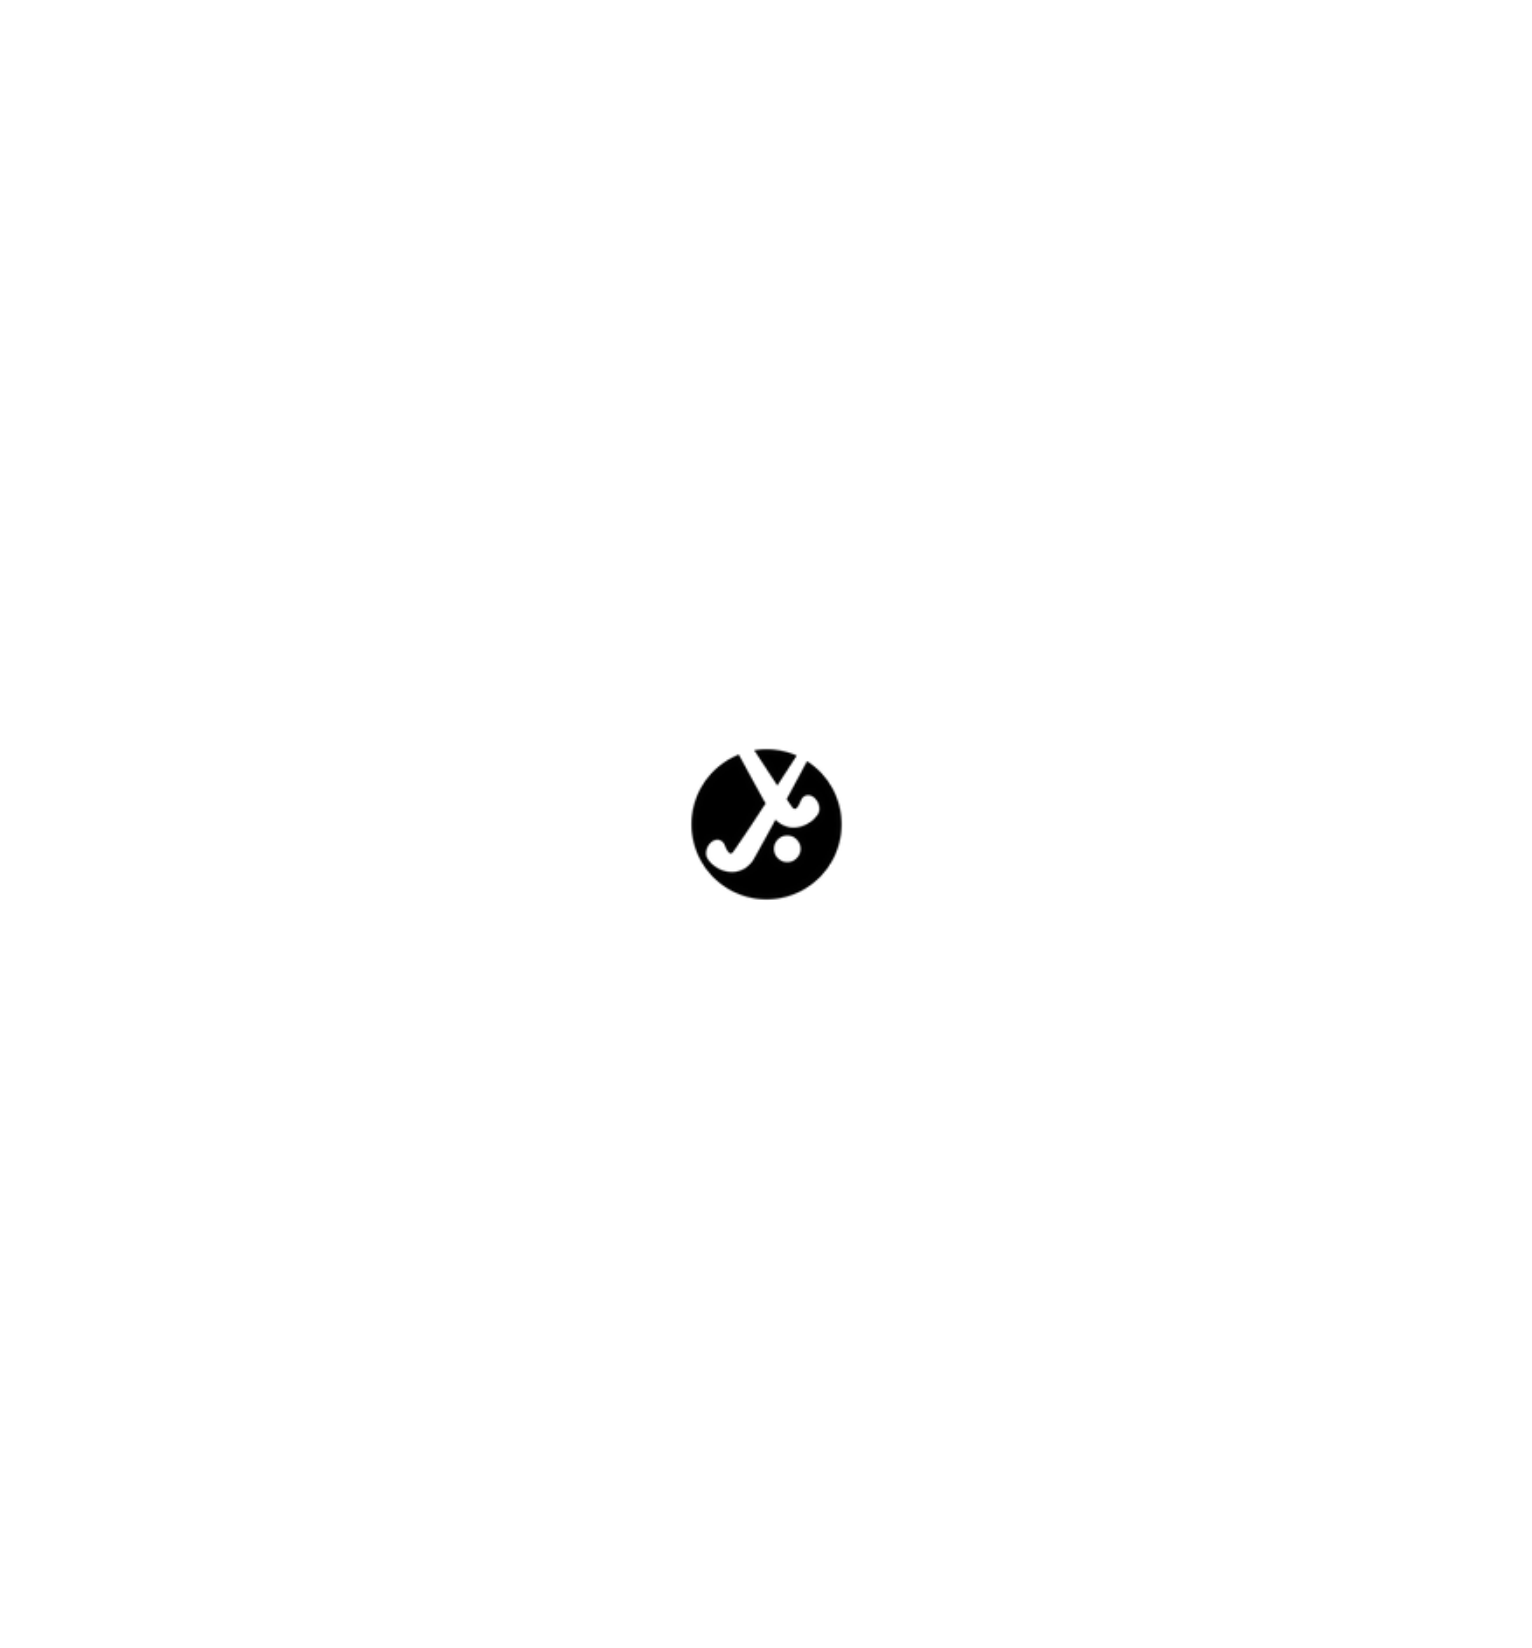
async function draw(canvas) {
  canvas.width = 1532;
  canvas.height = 1648;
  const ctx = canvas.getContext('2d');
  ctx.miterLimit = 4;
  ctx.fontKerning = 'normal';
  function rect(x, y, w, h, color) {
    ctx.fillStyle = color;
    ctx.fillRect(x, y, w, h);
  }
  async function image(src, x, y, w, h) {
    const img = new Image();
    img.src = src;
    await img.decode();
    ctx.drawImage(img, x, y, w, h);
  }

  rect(0, 0, 1532, 1648, '#fff');
  await image('assets/img1.png', 690, 748, 153, 153);
}

draw(document.querySelector('canvas'));
